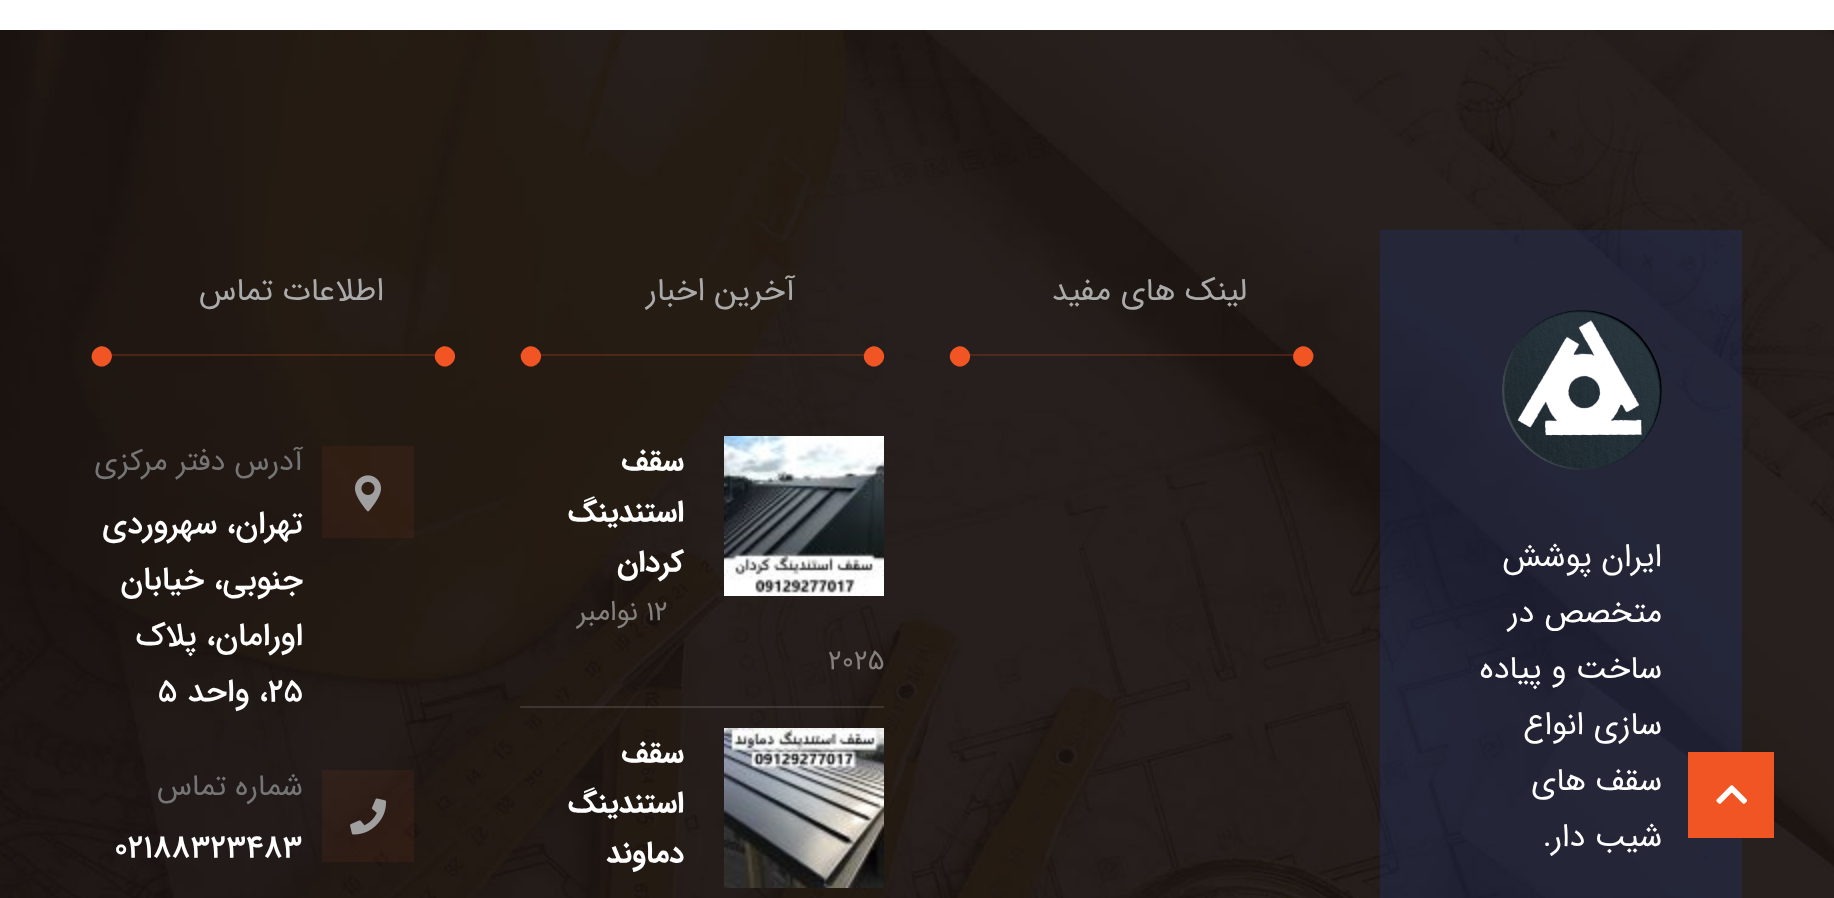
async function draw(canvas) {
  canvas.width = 1834;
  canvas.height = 898;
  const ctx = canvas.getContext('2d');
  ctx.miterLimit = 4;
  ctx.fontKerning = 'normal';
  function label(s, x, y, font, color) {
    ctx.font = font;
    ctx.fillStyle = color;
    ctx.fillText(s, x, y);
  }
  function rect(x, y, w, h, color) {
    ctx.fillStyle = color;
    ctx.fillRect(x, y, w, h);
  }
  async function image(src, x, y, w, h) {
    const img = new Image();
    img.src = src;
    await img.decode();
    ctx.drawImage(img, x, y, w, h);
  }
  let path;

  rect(0, 0, 1834, 898, '#fff');
  await image('assets/img2.png', 0, 30, 1834, 868);
  rect(1380, 230, 362, 668, '#1f37774f');
  rect(1688, 752, 86, 86, '#f15524');
  await image('assets/img1.png', 1716, 785, 32, 19);
  await image('assets/img3.png', 1502, 310, 160, 160);
  ctx.direction = 'rtl';
  label('ایران پوشش', 1662, 566, '32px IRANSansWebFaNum', '#fff');
  label('متخصص در', 1662, 622, '32px IRANSansWebFaNum', '#fff');
  label('ساخت و پیاده', 1662, 678, '32px IRANSansWebFaNum', '#fff');
  label('سازی انواع', 1662, 734, '32px IRANSansWebFaNum', '#fff');
  label('سقف های', 1662, 790, '32px IRANSansWebFaNum', '#fff');
  label('شیب دار.', 1662, 846, '32px IRANSansWebFaNum', '#fff');
  rect(950, 354, 364, 2, '#f1552436');
  label('لینک های مفید', 1247, 300, '32px IRANSansWebFaNum', '#aaa');
  ctx.fillStyle = '#f15524';
  path = new Path2D('M1310.5 349.5C1319.5 358.5 1305.5 373 1296 363.5C1287 354 1301 340 1310.5 349.5Z');
  ctx.fill(path);
  path = new Path2D('M967 349.5C976.5 358.5 962.5 373 953 363.5C943.5 354 958 340 967 349.5Z');
  ctx.fill(path);
  rect(520, 354, 364, 2, '#f1552436');
  label('آخرین اخبار', 795, 300, '32px IRANSansWebFaNum', '#aaa');
  ctx.fillStyle = '#f15524';
  path = new Path2D('M881 349.5C890.5 358.5 876.5 373 867 363.5C857.5 354 872 340 881 349.5Z');
  ctx.fill(path);
  path = new Path2D('M538 349.5C547.5 358.5 533 373 524 363.5C514.5 354 528.5 340 538 349.5Z');
  ctx.fill(path);
  rect(520, 706, 364, 2, '#a7a7a733');
  await image('assets/img4.png', 724, 436, 160, 160);
  label('سقف', 684, 470, 'bold 30px IRANSansWebFaNum', '#fff');
  label('استندینگ', 684, 521, 'bold 30px IRANSansWebFaNum', '#fff');
  label('کردان', 684, 571, 'bold 30px IRANSansWebFaNum', '#fff');
  ctx.direction = 'ltr';
  label('۱۲', 646, 620, '28px IRANSansWebFaNum', '#84807d');
  ctx.direction = 'rtl';
  label('نوامبر', 638, 620, '28px IRANSansWebFaNum', '#84807d');
  ctx.direction = 'ltr';
  label('۲۰۲۵', 828, 669, '28px IRANSansWebFaNum', '#84807d');
  await image('assets/img5.png', 724, 728, 160, 160);
  ctx.direction = 'rtl';
  label('سقف', 684, 762, 'bold 30px IRANSansWebFaNum', '#fff');
  label('استندینگ', 684, 812, 'bold 30px IRANSansWebFaNum', '#fff');
  label('دماوند', 684, 862, 'bold 30px IRANSansWebFaNum', '#fff');
  rect(111, 354, 325, 2, '#f1552436');
  label('اطلاعات تماس', 384, 300, '32px IRANSansWebFaNum', '#aaa');
  ctx.fillStyle = '#f15524';
  path = new Path2D('M452 349.5C461.5 358.5 447 373 438 363.5C428.5 354 442.5 340 452 349.5Z');
  ctx.fill(path);
  path = new Path2D('M109 349.5C118 358.5 104 373 94.5 363.5C85.5 354 99.5 340 109 349.5Z');
  ctx.fill(path);
  rect(322, 446, 92, 92, '#f1552412');
  await image('assets/img6.png', 355, 475, 26, 37);
  label('آدرس دفتر مرکزی', 303, 470, '30px IRANSansWebFaNum', '#757575');
  label('تهران، سهروردی', 303, 533, '500 32px IRANSansWebFaNum', '#fff');
  label('جنوبی، خیابان', 303, 589, '500 32px IRANSansWebFaNum', '#fff');
  label('اورامان، پلاک', 303, 645, '500 32px IRANSansWebFaNum', '#fff');
  ctx.direction = 'ltr';
  label('25', 268, 701, '500 32px IRANSansWebFaNum', '#fff');
  ctx.direction = 'rtl';
  label('، واحد', 268, 701, '500 32px IRANSansWebFaNum', '#fff');
  ctx.direction = 'ltr';
  label('5', 158, 701, '500 32px IRANSansWebFaNum', '#fff');
  rect(322, 770, 92, 92, '#f1552412');
  await image('assets/img7.png', 350, 798, 37, 37);
  ctx.direction = 'rtl';
  label('شماره تماس', 303, 795, '30px IRANSansWebFaNum', '#757575');
  ctx.direction = 'ltr';
  label('02188323483', 114, 857, '500 32px IRANSansWebFaNum', '#fff');
}

draw(document.querySelector('canvas'));
